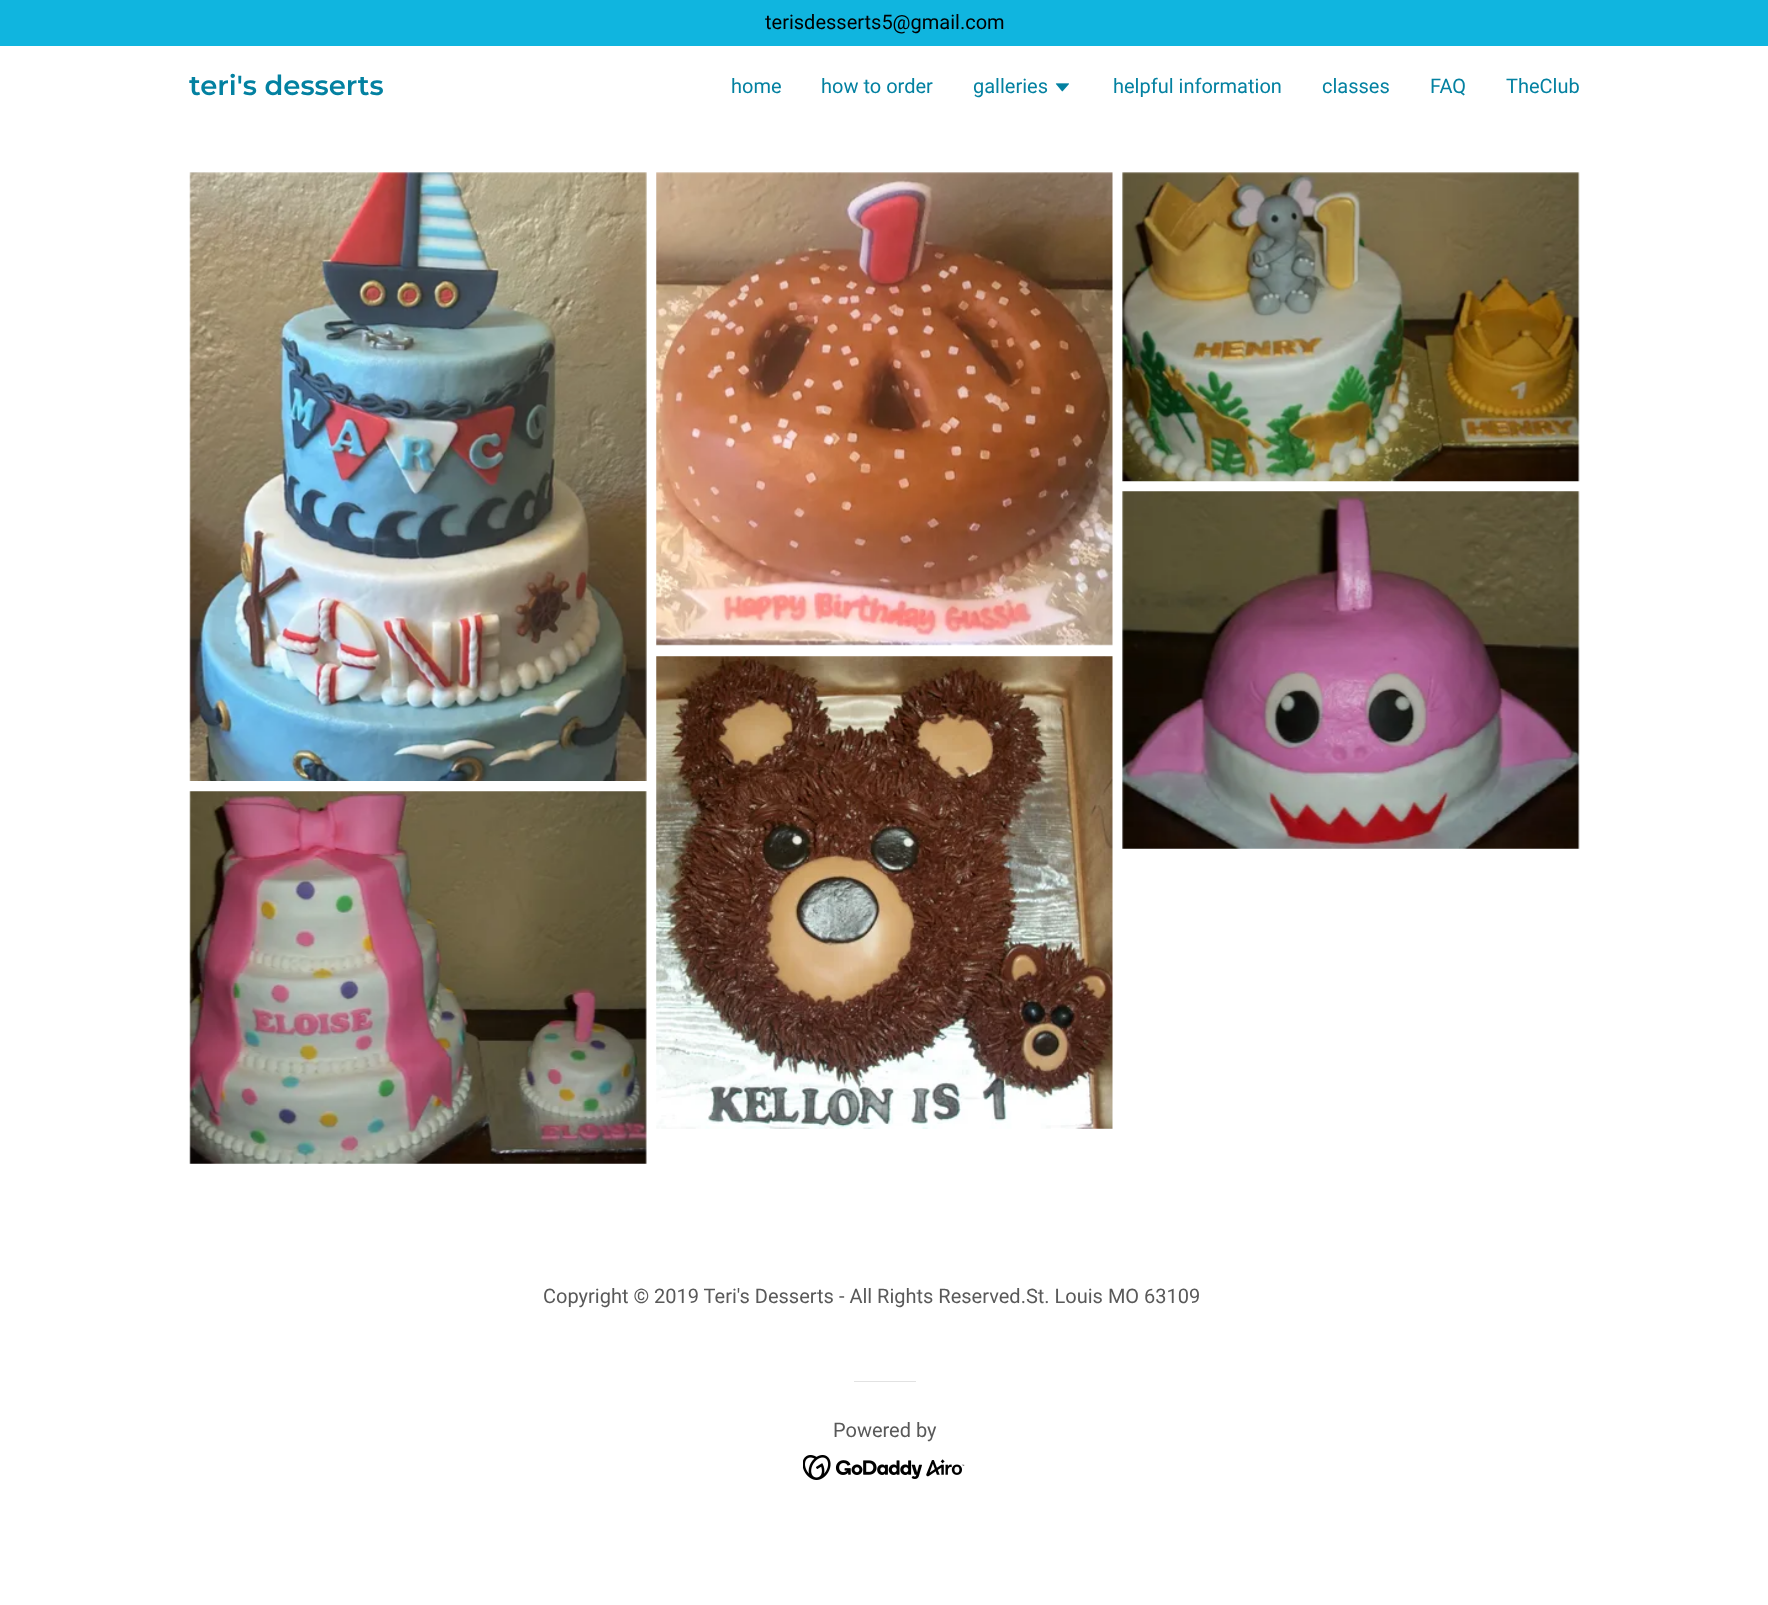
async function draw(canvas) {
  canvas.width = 1768;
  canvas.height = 1605;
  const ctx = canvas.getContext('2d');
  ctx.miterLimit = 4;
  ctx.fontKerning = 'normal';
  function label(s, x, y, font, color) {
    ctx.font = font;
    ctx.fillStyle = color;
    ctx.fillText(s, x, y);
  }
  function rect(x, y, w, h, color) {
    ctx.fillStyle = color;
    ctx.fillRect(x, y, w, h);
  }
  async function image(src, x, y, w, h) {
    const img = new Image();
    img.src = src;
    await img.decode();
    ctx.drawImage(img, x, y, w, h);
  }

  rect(0, 0, 1768, 1605, '#fff');
  rect(0, 0, 1768, 46, '#10b5df');
  label('terisdesserts5@gmail.com', 765, 29, '20px Roboto', '#000');
  label('teri\'s desserts', 189, 95, '600 27.5px Montserrat', '#0381a1');
  label('home', 731, 93, '20px Roboto', '#0381a1');
  label('how to order', 821, 93, '20px Roboto', '#0381a1');
  label('galleries', 973, 93, '20px Roboto', '#0381a1');
  await image('assets/img1.png', 1055, 83, 14, 9);
  label('helpful information', 1113, 93, '20px Roboto', '#0381a1');
  label('classes', 1322, 93, '20px Roboto', '#0381a1');
  label('FAQ', 1430, 93, '20px Roboto', '#0381a1');
  label('TheClub', 1506, 93, '20px Roboto', '#0381a1');
  await image('assets/img2.png', 189, 172, 458, 609);
  await image('assets/img3.png', 656, 172, 457, 474);
  await image('assets/img4.png', 1122, 172, 458, 310);
  await image('assets/img5.png', 189, 791, 458, 373);
  await image('assets/img6.png', 656, 656, 457, 473);
  await image('assets/img7.png', 1122, 491, 458, 358);
  label('Copyright © 2019 Teri\'s Desserts - All Rights Reserved.St. Louis MO 63109', 543, 1303, '20px Roboto', '#595959');
  rect(854, 1381, 62, 1, '#e2e2e2');
  label('Powered by', 833, 1437, '20px Roboto', '#595959');
  await image('assets/img8.png', 803, 1455, 162, 25);
}

draw(document.querySelector('canvas'));
